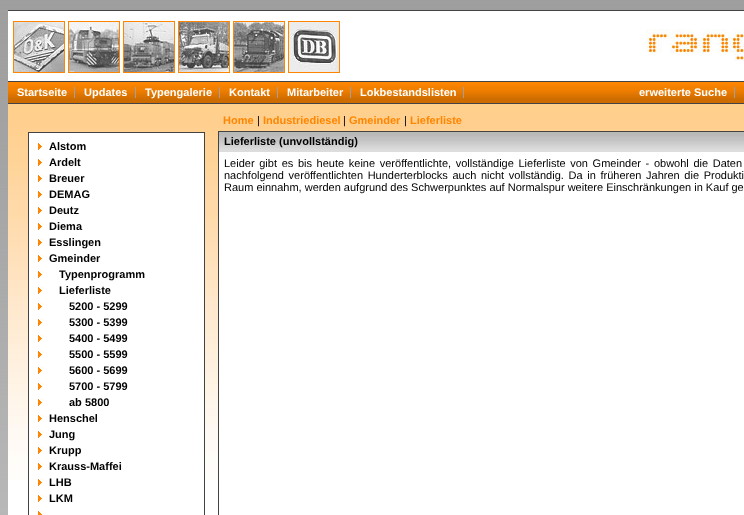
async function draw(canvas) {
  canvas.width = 744;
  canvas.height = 515;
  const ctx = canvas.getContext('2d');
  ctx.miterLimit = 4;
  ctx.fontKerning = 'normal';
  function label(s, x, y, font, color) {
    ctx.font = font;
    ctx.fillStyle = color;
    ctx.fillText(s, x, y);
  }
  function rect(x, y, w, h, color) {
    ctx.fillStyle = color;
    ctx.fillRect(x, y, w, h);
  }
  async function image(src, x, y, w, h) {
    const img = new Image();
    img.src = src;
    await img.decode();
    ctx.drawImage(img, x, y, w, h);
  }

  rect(0, 0, 744, 515, '#fff');
  await image('assets/img1.png', 0, 0, 744, 515);
  rect(8, 11, 736, 70, '#fff');
  rect(8, 10, 736, 1, '#434343');
  ctx.strokeStyle = '#ff8600';
  ctx.strokeRect(13.5, 21.5, 51, 51);
  ctx.strokeRect(68.5, 21.5, 51, 51);
  ctx.strokeRect(123.5, 21.5, 51, 51);
  ctx.strokeRect(178.5, 21.5, 51, 51);
  ctx.strokeRect(233.5, 21.5, 51, 51);
  ctx.strokeRect(288.5, 21.5, 51, 51);
  await image('assets/img2.png', 14, 22, 50, 50);
  await image('assets/img3.png', 69, 22, 50, 50);
  await image('assets/img4.png', 124, 22, 50, 50);
  await image('assets/img5.png', 179, 22, 50, 50);
  await image('assets/img6.png', 234, 22, 50, 50);
  await image('assets/img7.png', 289, 22, 50, 50);
  await image('assets/img8.png', 646, 29, 98, 32);
  rect(8, 81, 736, 1, '#434343');
  await image('assets/img9.png', 8, 82, 736, 21);
  label('Startseite', 17, 96, 'bold 11px Liberation Sans', '#fff');
  rect(74, 87, 1, 11, '#a0a0a0');
  label('Updates', 84, 96, 'bold 11px Liberation Sans', '#fff');
  rect(135, 87, 1, 11, '#a0a0a0');
  label('Typengalerie', 145, 96, 'bold 11px Liberation Sans', '#fff');
  rect(219, 87, 1, 11, '#a0a0a0');
  label('Kontakt', 229, 96, 'bold 11px Liberation Sans', '#fff');
  rect(277, 87, 1, 11, '#a0a0a0');
  label('Mitarbeiter', 287, 96, 'bold 11px Liberation Sans', '#fff');
  rect(350, 87, 1, 11, '#a0a0a0');
  label('Lokbestandslisten', 360, 96, 'bold 11px Liberation Sans', '#fff');
  rect(463, 87, 1, 11, '#a0a0a0');
  label('erweiterte Suche', 639, 96, 'bold 11px Liberation Sans', '#fff');
  rect(734, 87, 1, 11, '#a0a0a0');
  rect(8, 480, 210, 35, '#fff');
  await image('assets/img10.png', 8, 104, 736, 376);
  rect(8, 103, 736, 1, '#434343');
  label('Home', 223, 124, 'bold 11px Liberation Sans', '#ff8600');
  label('|', 257, 124, '11px Liberation Sans', '#000');
  label('Industriediesel', 263, 124, 'bold 11px Liberation Sans', '#ff8600');
  label('|', 343, 124, '11px Liberation Sans', '#000');
  label('Gmeinder', 349, 124, 'bold 11px Liberation Sans', '#ff8600');
  label('|', 404, 124, '11px Liberation Sans', '#000');
  label('Lieferliste', 410, 124, 'bold 11px Liberation Sans', '#ff8600');
  rect(29, 133, 175, 347, '#fff');
  ctx.strokeStyle = '#434343';
  ctx.strokeRect(28.5, 132.5, 176, 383);
  await image('assets/img11.png', 38, 143, 4, 7);
  label('Alstom', 49, 150, 'bold 11px Liberation Sans', '#000');
  await image('assets/img11.png', 38, 159, 4, 7);
  label('Ardelt', 49, 166, 'bold 11px Liberation Sans', '#000');
  await image('assets/img11.png', 38, 175, 4, 7);
  label('Breuer', 49, 182, 'bold 11px Liberation Sans', '#000');
  await image('assets/img11.png', 38, 191, 4, 7);
  label('DEMAG', 49, 198, 'bold 11px Liberation Sans', '#000');
  await image('assets/img11.png', 38, 207, 4, 7);
  label('Deutz', 49, 214, 'bold 11px Liberation Sans', '#000');
  await image('assets/img11.png', 38, 223, 4, 7);
  label('Diema', 49, 230, 'bold 11px Liberation Sans', '#000');
  await image('assets/img11.png', 38, 239, 4, 7);
  label('Esslingen', 49, 246, 'bold 11px Liberation Sans', '#000');
  await image('assets/img11.png', 38, 255, 4, 7);
  label('Gmeinder', 49, 262, 'bold 11px Liberation Sans', '#000');
  await image('assets/img11.png', 38, 271, 4, 7);
  label('Typenprogramm', 59, 278, 'bold 11px Liberation Sans', '#000');
  await image('assets/img11.png', 38, 287, 4, 7);
  label('Lieferliste', 59, 294, 'bold 11px Liberation Sans', '#000');
  await image('assets/img11.png', 38, 303, 4, 7);
  label('5200 - 5299', 69, 310, 'bold 11px Liberation Sans', '#000');
  await image('assets/img11.png', 38, 319, 4, 7);
  label('5300 - 5399', 69, 326, 'bold 11px Liberation Sans', '#000');
  await image('assets/img11.png', 38, 335, 4, 7);
  label('5400 - 5499', 69, 342, 'bold 11px Liberation Sans', '#000');
  await image('assets/img11.png', 38, 351, 4, 7);
  label('5500 - 5599', 69, 358, 'bold 11px Liberation Sans', '#000');
  await image('assets/img11.png', 38, 367, 4, 7);
  label('5600 - 5699', 69, 374, 'bold 11px Liberation Sans', '#000');
  await image('assets/img11.png', 38, 383, 4, 7);
  label('5700 - 5799', 69, 390, 'bold 11px Liberation Sans', '#000');
  await image('assets/img11.png', 38, 399, 4, 7);
  label('ab 5800', 69, 406, 'bold 11px Liberation Sans', '#000');
  await image('assets/img11.png', 38, 415, 4, 7);
  label('Henschel', 49, 422, 'bold 11px Liberation Sans', '#000');
  await image('assets/img11.png', 38, 431, 4, 7);
  label('Jung', 49, 438, 'bold 11px Liberation Sans', '#000');
  await image('assets/img11.png', 38, 447, 4, 7);
  label('Krupp', 49, 454, 'bold 11px Liberation Sans', '#000');
  await image('assets/img11.png', 38, 463, 4, 7);
  label('Krauss-Maffei', 49, 470, 'bold 11px Liberation Sans', '#000');
  await image('assets/img11.png', 38, 479, 4, 7);
  label('LHB', 49, 486, 'bold 11px Liberation Sans', '#000');
  await image('assets/img11.png', 38, 495, 4, 7);
  label('LKM', 49, 502, 'bold 11px Liberation Sans', '#000');
  await image('assets/img12.png', 38, 511, 4, 4);
  rect(219, 152, 525, 363, '#fff');
  ctx.strokeRect(218.5, 131.5, 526, 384);
  await image('assets/img13.png', 219, 132, 525, 20);
  label('Lieferliste (unvollständig)', 224, 145, 'bold 11px Liberation Sans', '#000');
  ctx.wordSpacing = '1.6px';
  label('Leider gibt es bis heute keine veröffentlichte, vollständige Lieferliste von Gmeinder - obwohl die Daten', 224, 167, '11px Liberation Sans', '#000');
  label('nachfolgend veröffentlichten Hunderterblocks auch nicht vollständig. Da in früheren Jahren die Produkti', 224, 179, '11px Liberation Sans', '#000');
  ctx.wordSpacing = '0px';
  label('Raum einnahm, werden aufgrund des Schwerpunktes auf Normalspur weitere Einschränkungen in Kauf ge', 224, 191, '11px Liberation Sans', '#000');
}

draw(document.querySelector('canvas'));
